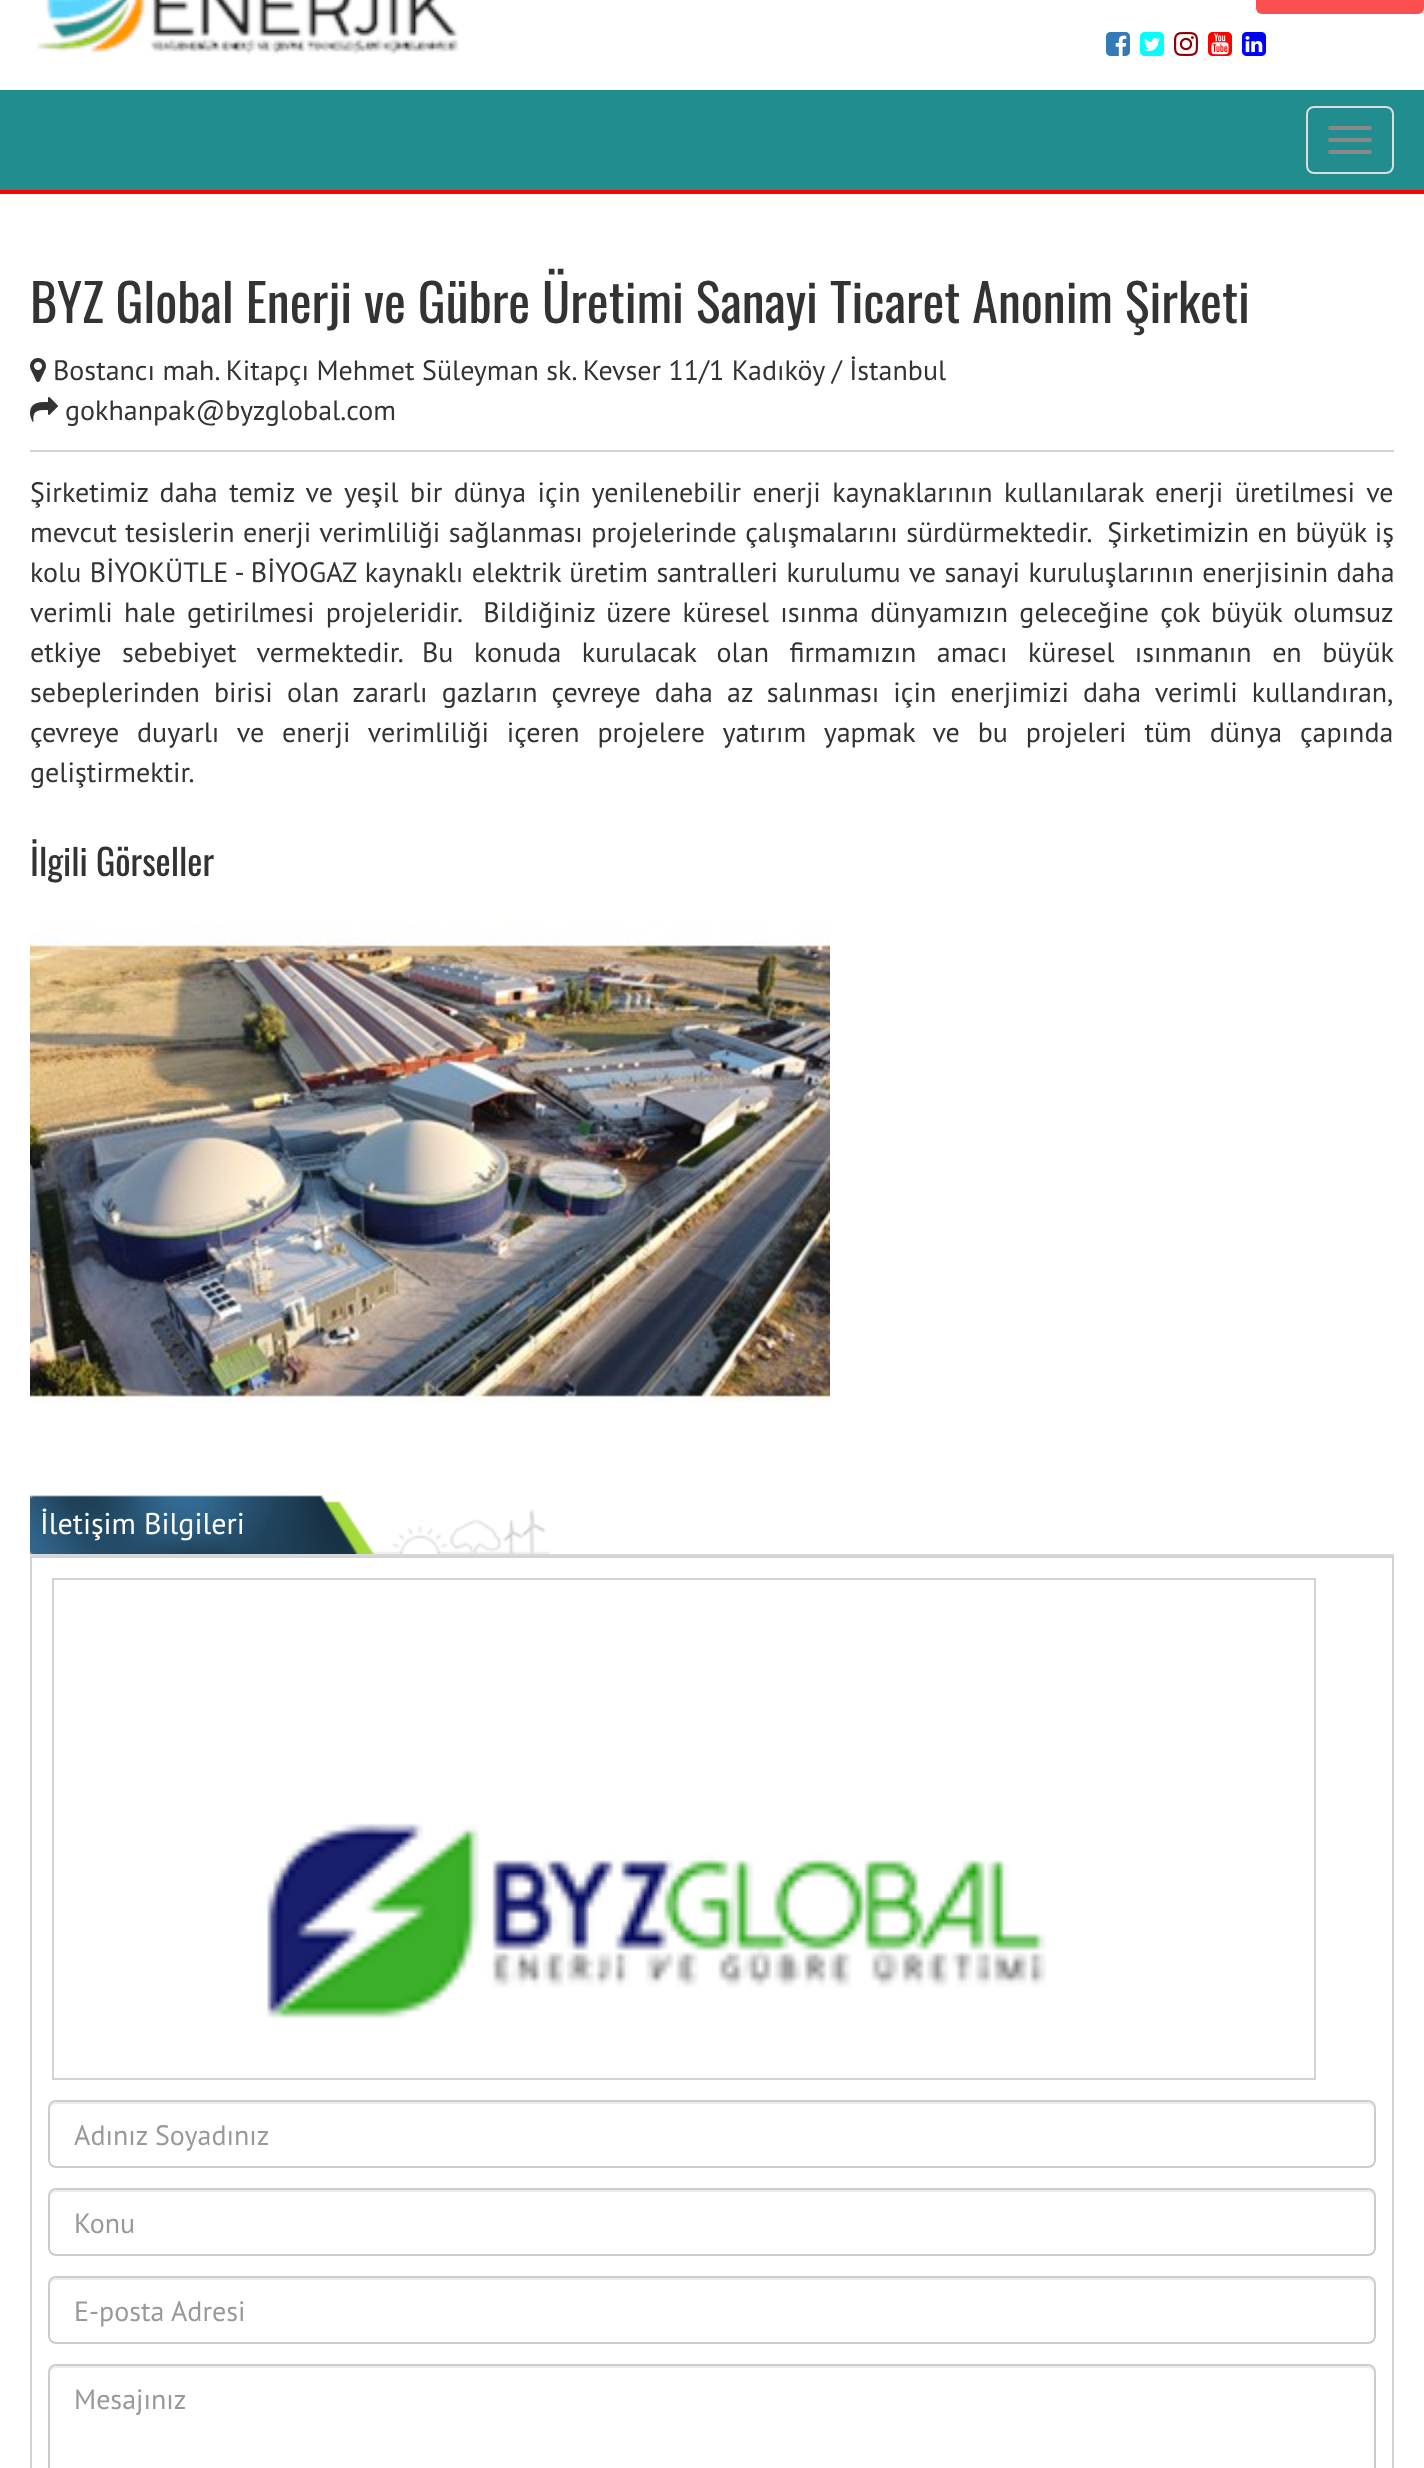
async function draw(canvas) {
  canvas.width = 1424;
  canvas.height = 2468;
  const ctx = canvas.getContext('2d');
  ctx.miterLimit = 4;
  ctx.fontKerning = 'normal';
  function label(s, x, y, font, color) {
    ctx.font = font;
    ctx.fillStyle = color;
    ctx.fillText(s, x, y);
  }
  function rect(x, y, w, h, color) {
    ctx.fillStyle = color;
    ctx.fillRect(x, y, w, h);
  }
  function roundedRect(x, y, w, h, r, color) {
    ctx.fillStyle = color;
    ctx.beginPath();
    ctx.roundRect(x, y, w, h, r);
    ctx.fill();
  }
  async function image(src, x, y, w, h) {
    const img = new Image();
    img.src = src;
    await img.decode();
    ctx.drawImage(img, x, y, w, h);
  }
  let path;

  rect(0, 0, 1424, 2468, '#fff');
  await image('assets/img1.png', 37, 0, 423, 55);
  roundedRect(1256, -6, 168, 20, 6, '#fb4f4f');
  await image('assets/img2.png', 1106, 32, 24, 24);
  await image('assets/img3.png', 1140, 32, 24, 24);
  await image('assets/img4.png', 1174, 32, 24, 24);
  await image('assets/img5.png', 1208, 32, 24, 24);
  await image('assets/img6.png', 1242, 32, 24, 24);
  rect(0, 90, 1424, 100, '#228d8e');
  rect(0, 190, 1424, 4, '#f00');
  ctx.beginPath();
  ctx.roundRect(1307, 107, 86, 66, 7);
  ctx.strokeStyle = '#ddd';
  ctx.lineWidth = 2;
  ctx.stroke();
  roundedRect(1328, 126, 44, 4, 2, '#888');
  roundedRect(1328, 138, 44, 4, 2, '#888');
  roundedRect(1328, 150, 44, 4, 2, '#888');
  label('BYZ Global Enerji ve Gübre Üretimi Sanayi Ticaret Anonim Şirketi', 30, 323, '52px Oswald', '#333');
  rect(30, 450, 1364, 2, '#d3d3d3');
  await image('assets/img7.png', 30, 358, 16, 24);
  label('Bostancı mah. Kitapçı Mehmet Süleyman sk. Kevser 11/1 Kadıköy / İstanbul', 53, 380, '28px PT Sans', '#333');
  await image('assets/img8.png', 30, 397, 28, 25);
  label('gokhanpak@byzglobal.com', 65, 420, '28px PT Sans', '#333');
  ctx.wordSpacing = '4px';
  label('Şirketimiz daha temiz ve yeşil bir dünya için yenilenebilir enerji kaynaklarının kullanılarak enerji üretilmesi ve', 30, 502, '28px PT Sans', '#333');
  ctx.wordSpacing = '1px';
  label('mevcut tesislerin enerji verimliliği sağlanması projelerinde çalışmalarını sürdürmektedir.  Şirketimizin en büyük iş', 30, 542, '28px PT Sans', '#333');
  label('kolu BİYOKÜTLE - BİYOGAZ kaynaklı elektrik üretim santralleri kurulumu ve sanayi kuruluşlarının enerjisinin daha', 30, 582, '28px PT Sans', '#333');
  ctx.wordSpacing = '3.75px';
  label('verimli hale getirilmesi projeleridir.  Bildiğiniz üzere küresel ısınma dünyamızın geleceğine çok büyük olumsuz', 30, 622, '28px PT Sans', '#333');
  ctx.wordSpacing = '13px';
  label('etkiye sebebiyet vermektedir. Bu konuda kurulacak olan firmamızın amacı küresel ısınmanın en büyük', 30, 662, '28px PT Sans', '#333');
  ctx.wordSpacing = '6.6px';
  label('sebeplerinden birisi olan zararlı gazların çevreye daha az salınması için enerjimizi daha verimli kullandıran,', 30, 702, '28px PT Sans', '#333');
  ctx.wordSpacing = '10.4px';
  label('çevreye duyarlı ve enerji verimliliği içeren projelere yatırım yapmak ve bu projeleri tüm dünya çapında', 30, 742, '28px PT Sans', '#333');
  ctx.wordSpacing = '0px';
  label('geliştirmektir.', 30, 782, '28px PT Sans', '#333');
  label('İlgili Görseller', 30, 876, '36px Oswald', '#333');
  await image('assets/img9.png', 30, 922, 800, 481);
  await image('assets/img10.png', 30, 1495, 520, 59);
  rect(30, 1554, 1364, 2, '#d8d8d8');
  label('İletişim Bilgileri', 40, 1534, '30px PT Sans', '#fff');
  ctx.strokeStyle = '#d3d3d3';
  ctx.strokeRect(31, 1557, 1362, 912);
  ctx.strokeRect(53, 1579, 1262, 500);
  await image('assets/img11.png', 267, 1823, 780, 195);
  ctx.fillStyle = '#ececec';
  path = new Path2D('M56 2104H1368C1371 2104 1374 2107 1374 2110V2108C1374 2105 1371 2102 1368 2102H56C53 2102 50 2105 50 2108V2110C50 2107 53 2104 56 2104Z');
  ctx.fill(path);
  ctx.beginPath();
  ctx.roundRect(49, 2101, 1326, 66, 7);
  ctx.strokeStyle = '#ccc';
  ctx.stroke();
  label('Adınız Soyadınız', 74, 2145, '28px PT Sans', '#999');
  ctx.fillStyle = '#ececec';
  path = new Path2D('M56 2192H1368C1371 2192 1374 2195 1374 2198V2196C1374 2193 1371 2190 1368 2190H56C53 2190 50 2193 50 2196V2198C50 2195 53 2192 56 2192Z');
  ctx.fill(path);
  ctx.beginPath();
  ctx.roundRect(49, 2189, 1326, 66, 7);
  ctx.stroke();
  label('Konu', 74, 2233, '28px PT Sans', '#999');
  ctx.fillStyle = '#ececec';
  path = new Path2D('M56 2280H1368C1371 2280 1374 2283 1374 2286V2284C1374 2281 1371 2278 1368 2278H56C53 2278 50 2281 50 2284V2286C50 2283 53 2280 56 2280Z');
  ctx.fill(path);
  ctx.beginPath();
  ctx.roundRect(49, 2277, 1326, 66, 7);
  ctx.stroke();
  label('E-posta Adresi', 74, 2321, '28px PT Sans', '#999');
  ctx.fillStyle = '#ececec';
  path = new Path2D('M56 2368H1368C1371 2368 1374 2371 1374 2374V2372C1374 2369 1371 2366 1368 2366H56C53 2366 50 2369 50 2372V2374C50 2371 53 2368 56 2368Z');
  ctx.fill(path);
  ctx.beginPath();
  ctx.roundRect(49, 2365, 1326, 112, 7);
  ctx.stroke();
  label('Mesajınız', 74, 2409, '28px PT Sans', '#999');
}

draw(document.querySelector('canvas'));
